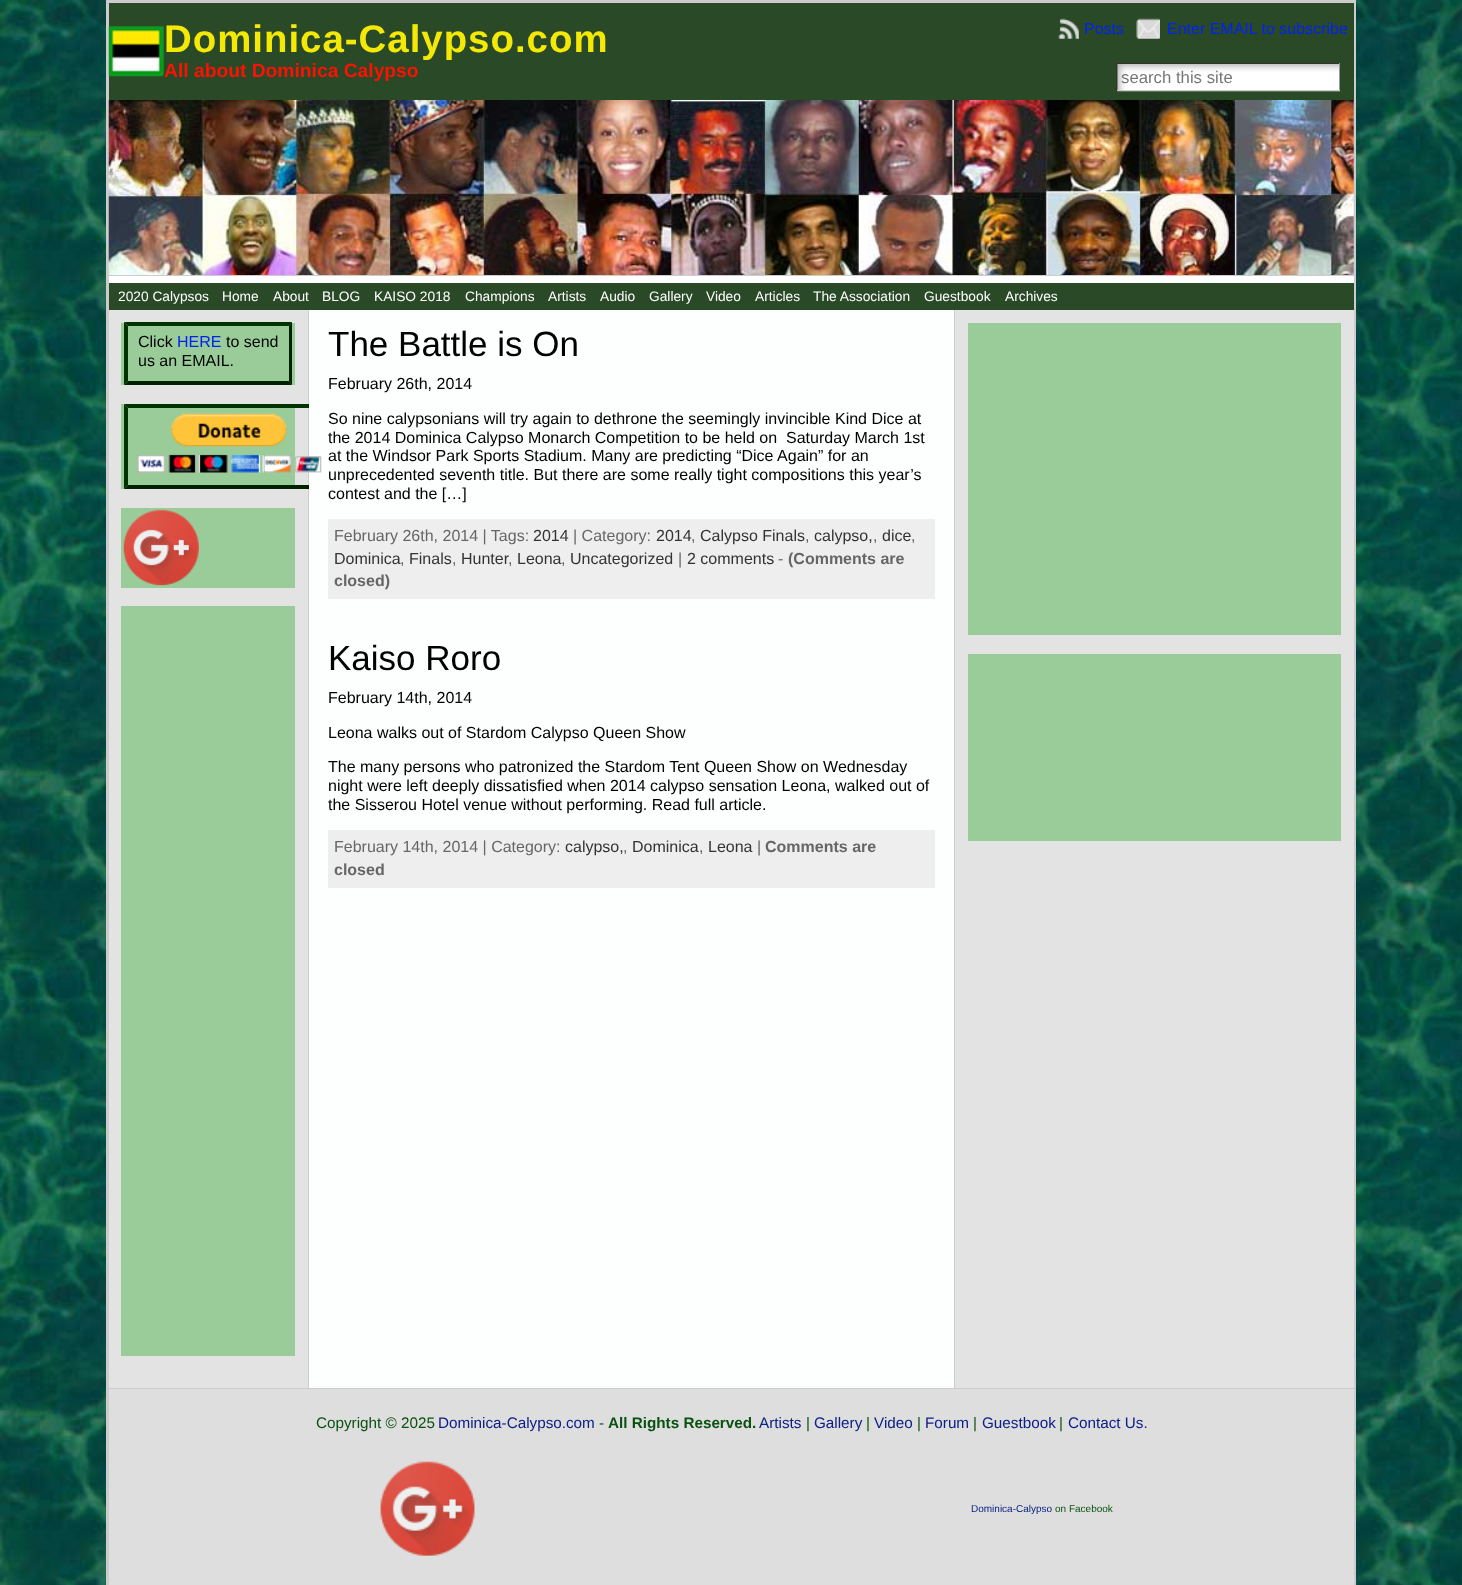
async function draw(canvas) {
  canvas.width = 1462;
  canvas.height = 1585;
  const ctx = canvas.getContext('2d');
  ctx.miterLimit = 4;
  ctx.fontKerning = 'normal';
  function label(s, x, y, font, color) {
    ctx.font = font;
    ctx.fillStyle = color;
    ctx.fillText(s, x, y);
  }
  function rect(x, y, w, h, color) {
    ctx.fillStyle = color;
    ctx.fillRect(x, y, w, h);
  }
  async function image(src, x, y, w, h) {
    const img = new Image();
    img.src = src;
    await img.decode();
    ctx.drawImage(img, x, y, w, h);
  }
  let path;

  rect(0, 0, 1462, 1585, '#fff');
  await image('assets/img1.png', 0, 0, 1462, 1585);
  ctx.strokeStyle = '#ccc';
  ctx.lineWidth = 3;
  ctx.strokeRect(107.5, 1.5, 1247, 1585);
  rect(109, 3, 1245, 97, '#2a4927');
  await image('assets/img2.png', 108, 26, 56, 51);
  ctx.letterSpacing = '1px';
  label('Dominica-Calypso.com', 164, 52, 'bold 38.4px Liberation Sans', '#f4e906');
  ctx.letterSpacing = '0px';
  label('All about Dominica Calypso', 164, 77, 'bold 19.25px Liberation Sans', '#fc1103');
  await image('assets/img3.png', 1058, 18, 21, 21);
  label('Posts', 1084, 34, '16px Liberation Sans', '#0023f2');
  await image('assets/img4.png', 1136, 18, 24, 21);
  label('Enter EMAIL to subscribe', 1167, 34, '16px Liberation Sans', '#0023f2');
  await image('assets/img5.png', 1117, 64, 223, 28);
  rect(1116, 63, 224, 1, '#333');
  rect(1339, 63, 1, 28, '#999');
  rect(1116, 90, 224, 1, '#ccc');
  rect(1116, 63, 1, 28, '#333');
  label('search this site', 1121, 83, '16.75px Liberation Sans', '#777');
  await image('assets/img6.png', 108, 100, 1246, 175);
  rect(109, 276, 1245, 7, '#fff');
  rect(109, 275, 1245, 1, '#ccc');
  rect(109, 283, 1245, 27, '#2a4927');
  label('2020 Calypsos', 118, 301, '13.75px Liberation Sans', '#fff');
  label('Home', 222, 301, '13.75px Liberation Sans', '#fff');
  label('About', 273, 301, '13.75px Liberation Sans', '#fff');
  label('BLOG', 322, 301, '13.75px Liberation Sans', '#fff');
  label('KAISO 2018', 374, 301, '13.75px Liberation Sans', '#fff');
  label('Champions', 465, 301, '13.75px Liberation Sans', '#fff');
  label('Artists', 548, 301, '13.75px Liberation Sans', '#fff');
  label('Audio', 600, 301, '13.75px Liberation Sans', '#fff');
  label('Gallery', 649, 301, '13.75px Liberation Sans', '#fff');
  label('Video', 706, 301, '13.75px Liberation Sans', '#fff');
  label('Articles', 755, 301, '13.75px Liberation Sans', '#fff');
  label('The Association', 813, 301, '13.75px Liberation Sans', '#fff');
  label('Guestbook', 924, 301, '13.75px Liberation Sans', '#fff');
  label('Archives', 1005, 301, '13.75px Liberation Sans', '#fff');
  rect(109, 310, 199, 1078, '#e3e3e3');
  rect(308, 310, 1, 1078, '#ccc');
  rect(121, 323, 174, 62, '#9c9');
  ctx.fillStyle = '#030';
  path = new Path2D('M124 322H292L289 326H128Z');
  ctx.fill(path);
  ctx.fillStyle = '#020';
  path = new Path2D('M292 322V385L289 381V326Z');
  ctx.fill(path);
  path = new Path2D('M292 385H124L128 381H289Z');
  ctx.fill(path);
  ctx.fillStyle = '#030';
  path = new Path2D('M124 385V322L128 326V381Z');
  ctx.fill(path);
  label('Click', 138, 347, '16px Liberation Sans', '#000');
  label('HERE', 177, 347, '16px Liberation Sans', '#0023f2');
  label('to send', 226, 347, '16px Liberation Sans', '#000');
  label('us an EMAIL.', 138, 366, '16px Liberation Sans', '#000');
  rect(121, 404, 174, 85, '#9c9');
  ctx.fillStyle = '#030';
  path = new Path2D('M124 404H335L331 408H128Z');
  ctx.fill(path);
  ctx.fillStyle = '#020';
  path = new Path2D('M335 489H124L128 485H331Z');
  ctx.fill(path);
  ctx.fillStyle = '#030';
  path = new Path2D('M124 489V404L128 408V485Z');
  ctx.fill(path);
  rect(309, 310, 645, 1078, '#fcfffd');
  await image('assets/img7.png', 137, 413, 185, 60);
  rect(121, 508, 174, 80, '#9c9');
  await image('assets/img8.png', 123, 509, 76, 77);
  rect(121, 606, 174, 750, '#9c9');
  label('The Battle is On', 328, 356, '35px Liberation Sans', '#000');
  label('February 26th, 2014', 328, 389, '16px Liberation Sans', '#000');
  label('So nine calypsonians will try again to dethrone the seemingly invincible Kind Dice at', 328, 424, '16px Liberation Sans', '#000');
  label('the 2014 Dominica Calypso Monarch Competition to be held on  Saturday March 1st', 328, 443, '16px Liberation Sans', '#000');
  label('at the Windsor Park Sports Stadium. Many are predicting “Dice Again” for an', 328, 461, '16px Liberation Sans', '#000');
  label('unprecedented seventh title. But there are some really tight compositions this year’s', 328, 480, '16px Liberation Sans', '#000');
  label('contest and the […]', 328, 499, '16px Liberation Sans', '#000');
  rect(328, 519, 607, 80, '#eee');
  label('February 26th, 2014 | Tags:', 334, 541, '16px Liberation Sans', '#666');
  label('2014', 533, 541, '16px Liberation Sans', '#333');
  label('| Category:', 573, 541, '16px Liberation Sans', '#666');
  label('2014', 656, 541, '16px Liberation Sans', '#333');
  label(',', 691, 541, '16px Liberation Sans', '#666');
  label('Calypso Finals', 700, 541, '16px Liberation Sans', '#333');
  label(',', 805, 541, '16px Liberation Sans', '#666');
  label('calypso,', 814, 541, '16px Liberation Sans', '#333');
  label(',', 873, 541, '16px Liberation Sans', '#666');
  label('dice', 882, 541, '16px Liberation Sans', '#333');
  label(',', 911, 541, '16px Liberation Sans', '#666');
  label('Dominica', 334, 564, '16px Liberation Sans', '#333');
  label('Finals', 409, 564, '16px Liberation Sans', '#333');
  label('Hunter', 461, 564, '16px Liberation Sans', '#333');
  label('Leona', 517, 564, '16px Liberation Sans', '#333');
  label('Uncategorized', 570, 564, '16px Liberation Sans', '#333');
  label('|', 678, 564, '16px Liberation Sans', '#666');
  label('2 comments', 687, 564, '16px Liberation Sans', '#333');
  label('-', 778, 564, '16px Liberation Sans', '#666');
  label('(Comments are', 788, 564, 'bold 16px Liberation Sans', '#666');
  label(',', 400, 564, '16px Liberation Sans', '#666');
  label(',', 452, 564, '16px Liberation Sans', '#666');
  label(',', 508, 564, '16px Liberation Sans', '#666');
  label(',', 561, 564, '16px Liberation Sans', '#666');
  label('closed)', 334, 586, 'bold 16px Liberation Sans', '#666');
  label('Kaiso Roro', 328, 670, '35px Liberation Sans', '#000');
  label('February 14th, 2014', 328, 703, '16px Liberation Sans', '#000');
  label('Leona walks out of Stardom Calypso Queen Show', 328, 738, '16px Liberation Sans', '#000');
  label('The many persons who patronized the Stardom Tent Queen Show on Wednesday', 328, 772, '16px Liberation Sans', '#000');
  label('night were left deeply dissatisfied when 2014 calypso sensation Leona, walked out of', 328, 791, '16px Liberation Sans', '#000');
  label('the Sisserou Hotel venue without performing. Read full article.', 328, 810, '16px Liberation Sans', '#000');
  rect(328, 830, 607, 58, '#eee');
  label('February 14th, 2014 | Category:', 334, 852, '16px Liberation Sans', '#666');
  label('calypso,', 565, 852, '16px Liberation Sans', '#333');
  label(',', 623, 852, '16px Liberation Sans', '#666');
  label('Dominica', 632, 852, '16px Liberation Sans', '#333');
  label(',', 699, 852, '16px Liberation Sans', '#666');
  label('Leona', 708, 852, '16px Liberation Sans', '#333');
  label('|', 757, 852, '16px Liberation Sans', '#666');
  label('Comments are', 765, 852, 'bold 16px Liberation Sans', '#666');
  label('closed', 334, 875, 'bold 16px Liberation Sans', '#666');
  rect(955, 310, 399, 1078, '#e3e3e3');
  rect(954, 310, 1, 1078, '#ccc');
  rect(968, 323, 373, 312, '#9c9');
  rect(968, 654, 373, 187, '#9c9');
  rect(109, 1389, 1245, 196, '#dddedd');
  rect(109, 1388, 1245, 1, '#ccc');
  label('Copyright © 2025', 316, 1428, '15.25px Liberation Sans', '#0b5212');
  label('Dominica-Calypso.com', 438, 1428, '15.25px Liberation Sans', '#0c2087');
  label('-', 599, 1428, '15.25px Liberation Sans', '#0b5212');
  label('All Rights Reserved.', 608, 1428, 'bold 15.25px Liberation Sans', '#0b5212');
  label('Artists', 759, 1428, '15.25px Liberation Sans', '#0c2087');
  label('|', 806, 1428, '15.25px Liberation Sans', '#0b5212');
  label('Gallery', 814, 1428, '15.25px Liberation Sans', '#0c2087');
  label('|', 866, 1428, '15.25px Liberation Sans', '#0b5212');
  label('Video', 874, 1428, '15.25px Liberation Sans', '#0c2087');
  label('|', 917, 1428, '15.25px Liberation Sans', '#0b5212');
  label('Forum', 925, 1428, '15.25px Liberation Sans', '#0c2087');
  label('|', 973, 1428, '15.25px Liberation Sans', '#0b5212');
  label('Guestbook', 982, 1428, '15.25px Liberation Sans', '#0c2087');
  label('|', 1059, 1428, '15.25px Liberation Sans', '#0b5212');
  label('Contact Us.', 1068, 1428, '15.25px Liberation Sans', '#0c2087');
  await image('assets/img9.png', 380, 1461, 95, 95);
  label('Dominica-Calypso', 971, 1512, '10px Liberation Sans', '#0c2087');
  label('on Facebook', 1055, 1512, '10px Liberation Sans', '#0b5212');
}

draw(document.querySelector('canvas'));
